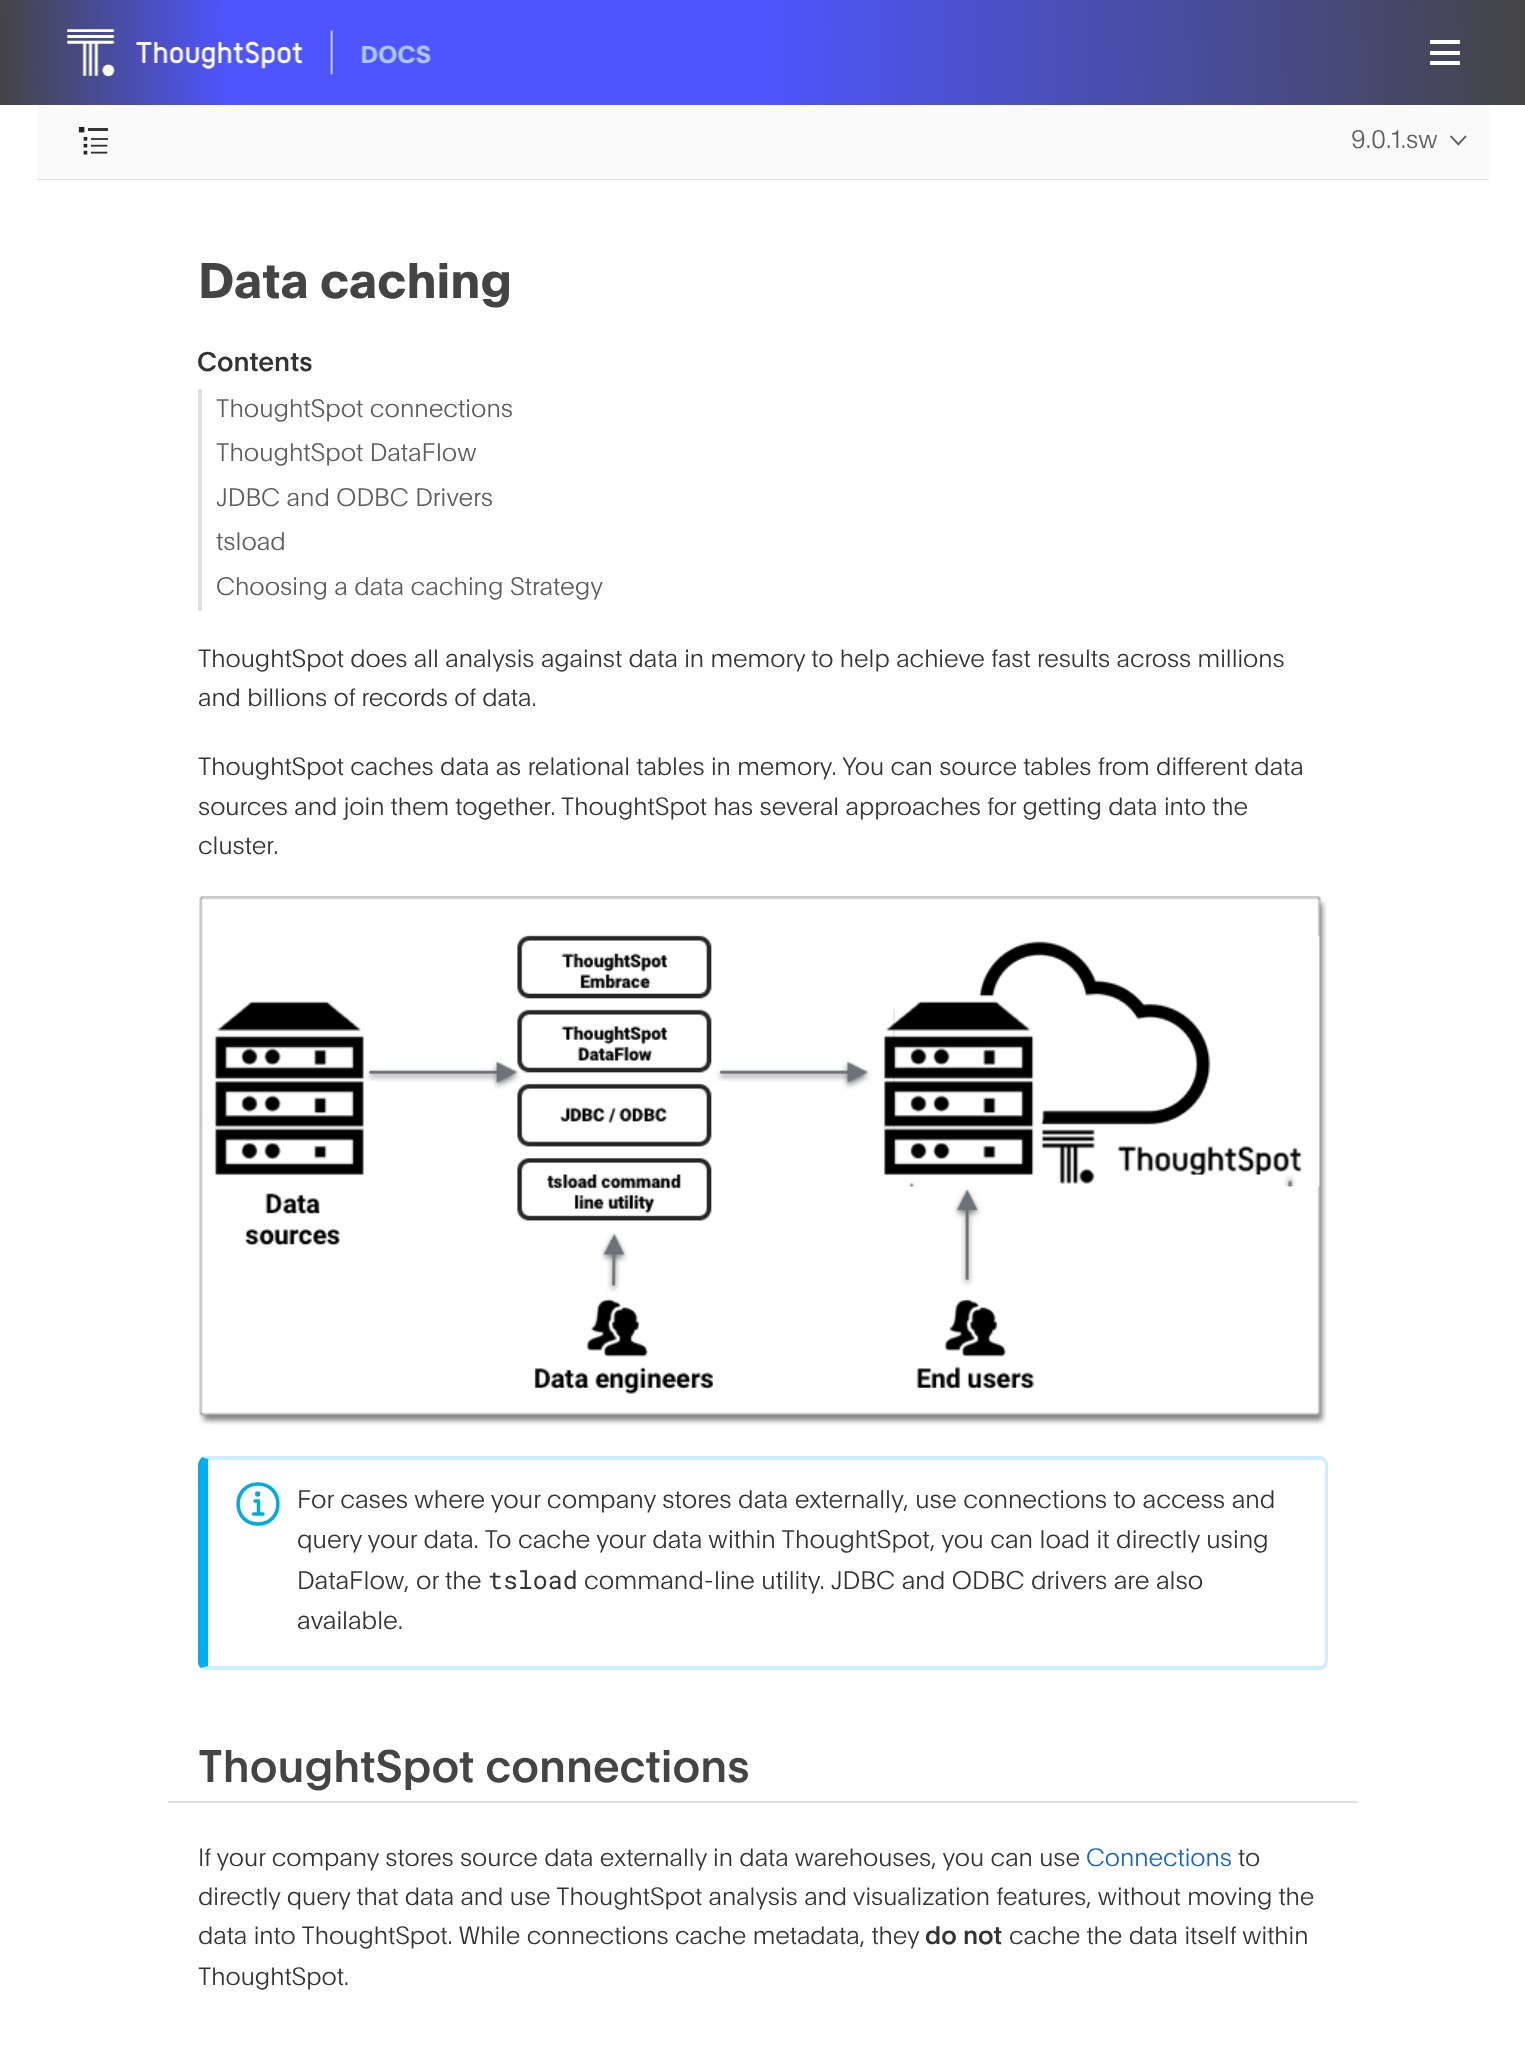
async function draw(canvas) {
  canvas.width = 1525;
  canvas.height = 2048;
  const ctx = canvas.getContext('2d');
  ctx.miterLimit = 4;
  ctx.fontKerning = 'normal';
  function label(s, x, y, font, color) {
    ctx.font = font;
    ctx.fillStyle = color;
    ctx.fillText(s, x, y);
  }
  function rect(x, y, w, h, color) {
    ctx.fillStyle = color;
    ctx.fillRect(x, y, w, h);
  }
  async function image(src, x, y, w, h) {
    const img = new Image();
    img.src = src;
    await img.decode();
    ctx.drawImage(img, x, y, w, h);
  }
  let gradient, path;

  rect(0, 0, 1525, 2048, '#fff');
  gradient = ctx.createLinearGradient(-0.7, 66, 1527, 39);
  gradient.addColorStop(0, '#444');
  gradient.addColorStop(0.15, '#4e55fd');
  gradient.addColorStop(0.5, '#4e55fd');
  gradient.addColorStop(0.85, '#474a82');
  gradient.addColorStop(1, '#444');
  ctx.fillStyle = gradient;
  ctx.fillRect(0, 0, 1525, 105);
  await image('assets/img1.png', 67, 29, 364, 48);
  rect(1430, 40, 30, 4, '#fff');
  rect(1430, 51, 30, 4, '#fff');
  rect(1430, 61, 30, 4, '#fff');
  rect(37, 179, 1452, 1, '#e1e1e1');
  rect(37, 105, 1452, 74, '#fafafa');
  await image('assets/img2.png', 78, 126, 30, 29);
  await image('assets/img3.png', 1450, 135, 17, 11);
  label('9.0.1.sw', 1351, 148, '100 24.75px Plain', '#5d5d5d');
  label('Data caching', 198, 298, 'bold 49px Plain', '#444');
  label('Contents', 197, 371, '500 26.5px Plain', '#333');
  rect(198, 389, 4, 222, '#e1e1e1');
  label('ThoughtSpot connections', 216, 417, '100 24.75px Plain', '#5d5d5d');
  label('ThoughtSpot DataFlow', 216, 461, '100 24.75px Plain', '#5d5d5d');
  label('JDBC and ODBC Drivers', 216, 506, '100 24.75px Plain', '#5d5d5d');
  label('tsload', 216, 550, '100 24.75px Plain', '#5d5d5d');
  label('Choosing a data caching Strategy', 216, 595, '100 24.75px Plain', '#5d5d5d');
  label('ThoughtSpot does all analysis against data in memory to help achieve fast results across millions', 198, 667, '100 24.5px Plain', '#333');
  label('and billions of records of data.', 198, 706, '100 24.5px Plain', '#333');
  label('ThoughtSpot caches data as relational tables in memory. You can source tables from different data', 198, 775, '100 24.5px Plain', '#333');
  label('sources and join them together. ThoughtSpot has several approaches for getting data into the', 198, 815, '100 24.5px Plain', '#333');
  label('cluster.', 198, 854, '100 24.5px Plain', '#333');
  await image('assets/img4.png', 199, 896, 1128, 529);
  ctx.fillStyle = '#ccefff';
  path = new Path2D('M206 1456L202 1457L210 1460H1320C1321 1460 1322 1460 1323 1461L1326 1459C1324 1457 1322 1456 1320 1456Z');
  ctx.fill(path);
  ctx.fillStyle = '#00aeff33';
  path = new Path2D('M1326 1459C1327 1460 1328 1463 1328 1465V1661C1328 1663 1327 1665 1326 1667L1323 1665L1325 1662V1465C1325 1463 1324 1462 1323 1461Z');
  ctx.fill(path);
  path = new Path2D('M204 1670L201 1668L208 1666H1320C1321 1666 1322 1665 1323 1665L1326 1667L1322 1670Z');
  ctx.fill(path);
  ctx.fillStyle = '#00aeef';
  path = new Path2D('M208 1460H210L202 1457C200 1459 198 1462 198 1465V1661C198 1664 199 1667 201 1668L208 1666Z');
  ctx.fill(path);
  path = new Path2D('M258 1484C231.5 1484 231.5 1524 258 1524C284.5 1524 284.5 1484 258 1484Z');
  ctx.strokeStyle = '#00abe0';
  ctx.lineWidth = 3.5;
  ctx.stroke(path);
  path = new Path2D('M255 1501H258.5V1513.5');
  ctx.lineCap = 'round';
  ctx.lineJoin = 'round';
  ctx.stroke(path);
  path = new Path2D('M253.5 1514H263');
  ctx.lineJoin = 'miter';
  ctx.stroke(path);
  ctx.fillStyle = '#00abdf';
  ctx.beginPath();
  ctx.arc(257.7, 1494, 0.9, 0, 2 * Math.PI);
  ctx.fill();
  ctx.stroke();
  label('For cases where your company stores data externally, use connections to access and', 297, 1508, '100 24.9px Plain', '#333');
  label('query your data. To cache your data within ThoughtSpot, you can load it directly using', 297, 1548, '100 24.9px Plain', '#333');
  label('DataFlow, or the', 297, 1589, '100 24.9px Plain', '#333');
  label('tsload', 488, 1589, '24.9px Roboto Mono', '#333');
  label('command-line utility. JDBC and ODBC drivers are also', 584, 1589, '100 24.9px Plain', '#333');
  label('available.', 297, 1629, '100 24.9px Plain', '#333');
  rect(168, 1801, 1190, 2, '#e1e1e1');
  label('ThoughtSpot connections', 198, 1782, '500 44.6px Plain', '#444');
  label('If your company stores source data externally in data warehouses, you can use', 198, 1866, '100 24.5px Plain', '#333');
  label('Connections', 1086, 1866, '100 24.5px Plain', '#1565c0');
  label('to', 1238, 1866, '100 24.5px Plain', '#333');
  label('directly query that data and use ThoughtSpot analysis and visualization features, without moving the', 198, 1905, '100 24.5px Plain', '#333');
  label('data into ThoughtSpot. While connections cache metadata, they', 198, 1944, '100 24.5px Plain', '#333');
  label('do not', 925, 1944, '500 25px Plain', '#333');
  label('cache the data itself within', 1009, 1944, '100 24.5px Plain', '#333');
  label('ThoughtSpot.', 198, 1985, '100 24.5px Plain', '#333');
}

draw(document.querySelector('canvas'));
